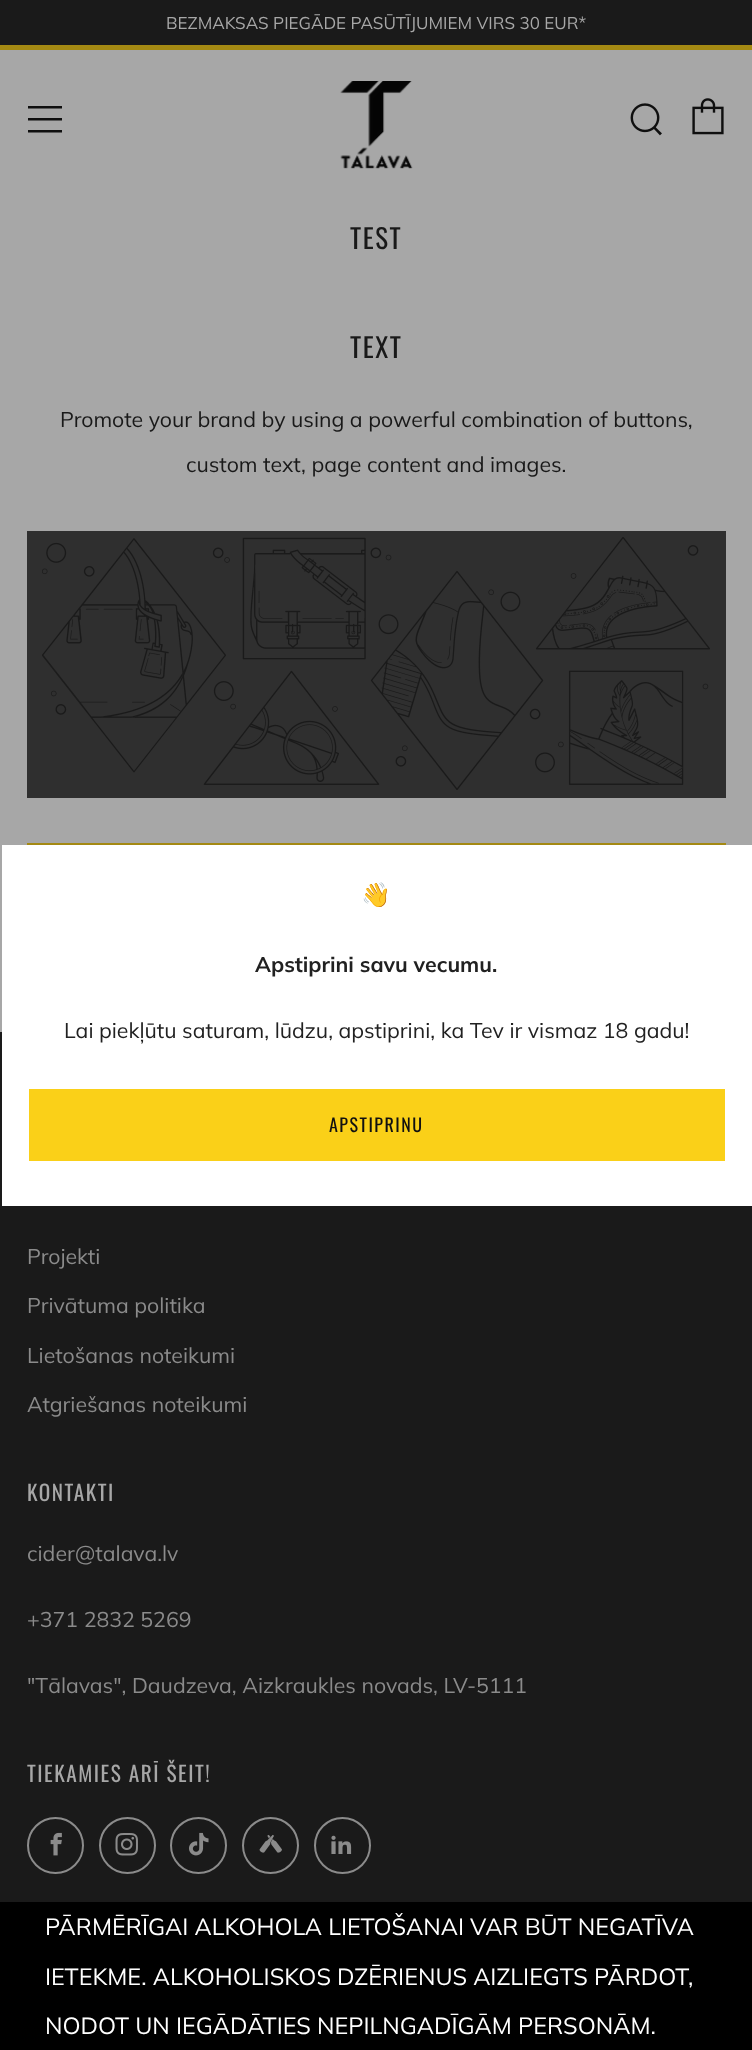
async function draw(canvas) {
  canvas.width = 752;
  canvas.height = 2050;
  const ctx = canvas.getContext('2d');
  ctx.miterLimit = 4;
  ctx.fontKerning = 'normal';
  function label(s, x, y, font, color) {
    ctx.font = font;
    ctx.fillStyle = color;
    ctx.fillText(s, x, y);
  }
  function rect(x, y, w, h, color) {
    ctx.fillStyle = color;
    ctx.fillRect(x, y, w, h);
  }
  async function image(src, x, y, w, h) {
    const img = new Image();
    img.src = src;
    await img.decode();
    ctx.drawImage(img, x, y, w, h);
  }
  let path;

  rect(0, 0, 752, 2050, '#a7a7a7');
  rect(0, 0, 752, 45, '#1a1a1a');
  label('BEZMAKSAS PIEGĀDE PASŪTĪJUMIEM VIRS 30 EUR*', 166, 29, '17px Muli', '#a7a7a7');
  rect(0, 45, 752, 5, '#a48913');
  ctx.fillStyle = '#0f0f0f';
  path = new Path2D('M28 108.5H62V106H28ZM28 132.5H62V130H28ZM28 120.5H62V118H28Z');
  ctx.fill(path);
  await image('assets/img1.png', 340, 81, 73, 88);
  await image('assets/img2.png', 630, 103, 32, 33);
  await image('assets/img3.png', 692, 98, 32, 37);
  ctx.letterSpacing = '1.5px';
  label('TEST', 350, 249, '27px Oswald', '#191919');
  label('TEXT', 350, 358, '27px Oswald', '#191919');
  ctx.letterSpacing = '0px';
  label('Promote your brand by using a powerful combination of buttons,', 60, 427, '21.3px Muli', '#191919');
  label('custom text, page content and images.', 186, 472, '21.3px Muli', '#191919');
  rect(27, 531, 699, 267, '#2f2f2f');
  await image('assets/img4.png', 42, 537, 668, 253);
  rect(27, 843, 699, 2, '#a48913');
  rect(0, 1032, 752, 870, '#1a1a1a');
  label('Projekti', 27, 1264, '21.3px Muli', '#8b8b8b');
  label('Privātuma politika', 27, 1313, '21.3px Muli', '#8b8b8b');
  label('Lietošanas noteikumi', 27, 1363, '21.3px Muli', '#8b8b8b');
  label('Atgriešanas noteikumi', 27, 1412, '21.3px Muli', '#8b8b8b');
  ctx.letterSpacing = '1.5px';
  label('KONTAKTI', 27, 1501, '21.3px Oswald', '#a7a7a7');
  ctx.letterSpacing = '0px';
  label('cider@talava.lv', 27, 1561, '21.3px Muli', '#8b8b8b');
  label('+371 2832 5269', 27, 1627, '21.3px Muli', '#8b8b8b');
  label('"Tālavas", Daudzeva, Aizkraukles novads, LV-5111', 27, 1693, '21.3px Muli', '#8b8b8b');
  ctx.letterSpacing = '1.5px';
  label('TIEKAMIES ARĪ ŠEIT!', 27, 1782, '21.3px Oswald', '#a7a7a7');
  ctx.beginPath();
  ctx.arc(55.5, 1845.5, 27.5, 0, 2 * Math.PI);
  ctx.strokeStyle = '#8b8b8b';
  ctx.lineWidth = 2;
  ctx.stroke();
  await image('assets/img5.png', 50, 1832, 12, 24);
  ctx.beginPath();
  ctx.arc(127.5, 1845.5, 27.5, 0, 2 * Math.PI);
  ctx.stroke();
  await image('assets/img6.png', 115, 1833, 23, 23);
  ctx.beginPath();
  ctx.arc(198.5, 1845.5, 27.5, 0, 2 * Math.PI);
  ctx.stroke();
  await image('assets/img7.png', 189, 1832, 20, 24);
  ctx.beginPath();
  ctx.arc(270.5, 1845.5, 27.5, 0, 2 * Math.PI);
  ctx.stroke();
  await image('assets/img8.png', 259, 1834, 23, 19);
  ctx.beginPath();
  ctx.arc(342.5, 1845.5, 27.5, 0, 2 * Math.PI);
  ctx.stroke();
  await image('assets/img9.png', 331, 1835, 21, 19);
  rect(0, 1902, 752, 148, '#000');
  ctx.letterSpacing = '0px';
  label('PĀRMĒRĪGAI ALKOHOLA LIETOŠANAI VAR BŪT NEGATĪVA', 45, 1935, '23.4px Muli', '#fff');
  label('IETEKME. ALKOHOLISKOS DZĒRIENUS AIZLIEGTS PĀRDOT,', 45, 1985, '23.4px Muli', '#fff');
  label('NODOT UN IEGĀDĀTIES NEPILNGADĪGĀM PERSONĀM.', 45, 2034, '23.4px Muli', '#fff');
  rect(2, 845, 750, 361, '#fff');
  ctx.letterSpacing = '1.5px';
  label('👋', 361, 903, '24px Noto Color Emoji', '#212121');
  ctx.letterSpacing = '0px';
  label('Apstiprini savu vecumu.', 255, 972, 'bold 21.3px Muli', '#212121');
  label('Lai piekļūtu saturam, lūdzu, apstiprini, ka Tev ir vismaz 18 gadu!', 64, 1038, '21.3px Muli', '#212121');
  rect(29, 1089, 696, 72, '#fad018');
  ctx.letterSpacing = '1.5px';
  label('APSTIPRINU', 329, 1132, '18px Oswald', '#111');
}

draw(document.querySelector('canvas'));
